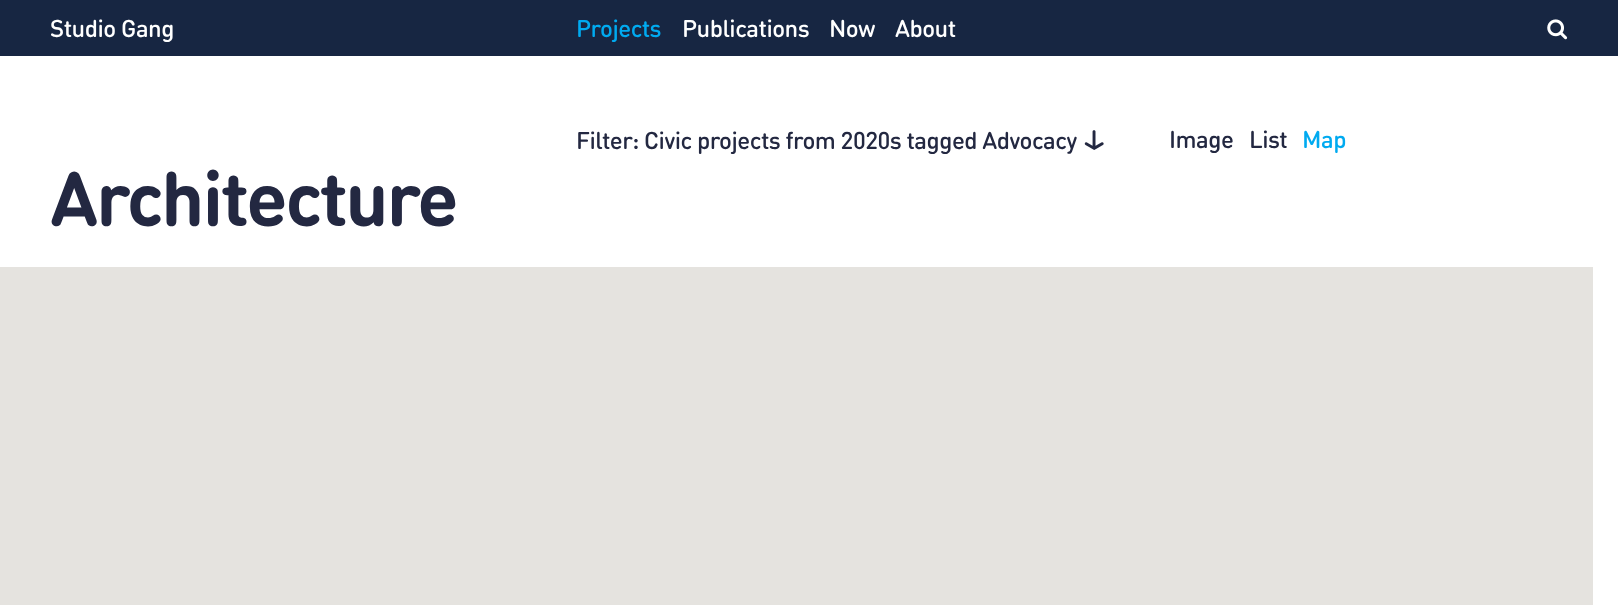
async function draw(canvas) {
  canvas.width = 1618;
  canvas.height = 605;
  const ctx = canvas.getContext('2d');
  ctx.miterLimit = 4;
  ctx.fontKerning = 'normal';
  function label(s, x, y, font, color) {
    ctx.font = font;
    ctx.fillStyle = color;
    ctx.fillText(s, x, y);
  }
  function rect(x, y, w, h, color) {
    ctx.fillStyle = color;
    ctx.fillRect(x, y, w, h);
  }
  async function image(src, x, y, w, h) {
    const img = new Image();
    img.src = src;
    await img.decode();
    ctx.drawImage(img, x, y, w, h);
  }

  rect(0, 0, 1618, 605, '#fff');
  rect(0, 0, 1618, 56, '#172642');
  ctx.letterSpacing = '-0.5px';
  label('Studio Gang', 50, 37, '500 24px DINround', '#fff');
  label('Projects', 576, 37, '500 24px DINround', '#00aaf0');
  label('Publications', 682, 37, '500 24px DINround', '#fff');
  label('Now', 829, 37, '500 24px DINround', '#fff');
  label('About', 895, 37, '500 24px DINround', '#fff');
  await image('assets/img1.png', 1547, 19, 21, 21);
  label('Filter', 576, 149, '500 24px DINround', '#232841');
  label(': Civic projects from 2020s tagged Advocacy', 632, 149, '500 24px DINround', '#232841');
  await image('assets/img2.png', 1084, 130, 20, 20);
  label('Image', 1169, 148, '500 24px DINround', '#232841');
  label('List', 1249, 148, '500 24px DINround', '#232841');
  label('Map', 1302, 148, '500 24px DINround', '#00aaf0');
  ctx.letterSpacing = '-2.25px';
  label('Architecture', 50, 226, 'bold 76px DINround', '#232841');
  rect(0, 267, 1593, 338, '#e5e3df');
}

draw(document.querySelector('canvas'));
